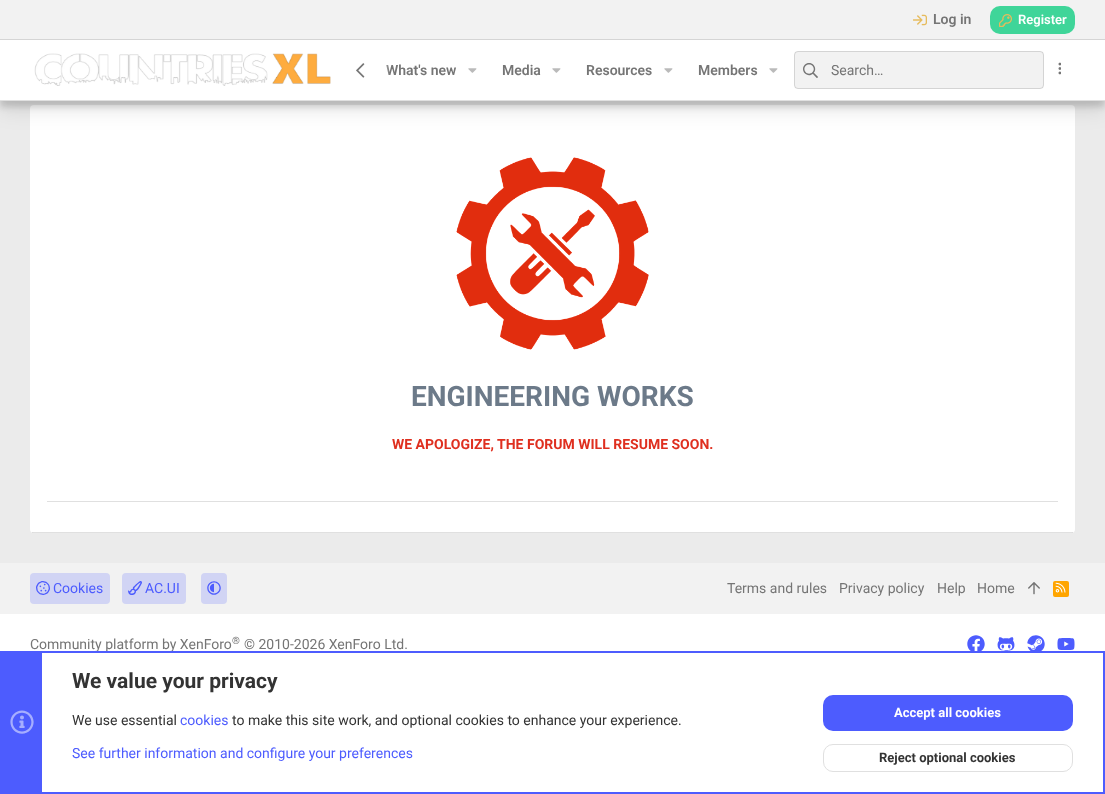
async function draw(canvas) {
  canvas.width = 1105;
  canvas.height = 794;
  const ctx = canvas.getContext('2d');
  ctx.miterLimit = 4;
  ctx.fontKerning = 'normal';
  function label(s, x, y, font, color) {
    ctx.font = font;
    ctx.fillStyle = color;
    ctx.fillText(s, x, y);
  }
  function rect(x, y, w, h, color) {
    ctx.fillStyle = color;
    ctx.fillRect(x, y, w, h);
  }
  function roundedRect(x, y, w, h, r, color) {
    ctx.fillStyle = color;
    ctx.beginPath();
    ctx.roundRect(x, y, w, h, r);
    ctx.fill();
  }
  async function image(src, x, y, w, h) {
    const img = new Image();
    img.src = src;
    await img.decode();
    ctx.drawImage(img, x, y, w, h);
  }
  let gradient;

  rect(0, 0, 1105, 794, '#ebebeb');
  roundedRect(30, 105, 1045, 428, 4, '#fff');
  ctx.fillStyle = '#00000026';
  ctx.filter = 'blur(3px)';
  ctx.beginPath();
  ctx.rect(0, 46, 1105, 61);
  ctx.fill();
  ctx.filter = 'none';
  ctx.fillStyle = '#00000017';
  ctx.filter = 'blur(10px)';
  ctx.beginPath();
  ctx.rect(0, 50, 1105, 61);
  ctx.fill();
  ctx.filter = 'none';
  rect(0, 0, 1105, 39, '#f2f2f2');
  rect(0, 39, 1105, 1, '#d5d5d5');
  await image('assets/img1.png', 913, 14, 14, 12);
  label('Log in', 933, 24, '600 14px Roboto', '#757575');
  roundedRect(990, 6, 85, 28, 10, '#3fd599');
  await image('assets/img2.png', 999, 14, 13, 13);
  label('Register', 1018, 24, '600 13px Roboto', '#fff');
  rect(0, 40, 1105, 60, '#fff');
  rect(0, 100, 1105, 1, '#e0e0e0');
  await image('assets/img3.png', 34, 53, 297, 33);
  label('What\'s new', 386, 75, '600 14px Roboto', '#757575');
  gradient = ctx.createLinearGradient(350, 70, 390, 70);
  gradient.addColorStop(0.66, '#fff');
  gradient.addColorStop(1, '#ffffff00');
  ctx.fillStyle = gradient;
  ctx.fillRect(386, 65, 4, 10);
  await image('assets/img4.png', 356, 63, 9, 15);
  await image('assets/img5.png', 468, 68, 9, 5);
  label('Media', 502, 75, '600 14px Roboto', '#757575');
  await image('assets/img5.png', 552, 68, 9, 5);
  label('Resources', 586, 75, '600 14px Roboto', '#757575');
  await image('assets/img5.png', 664, 68, 9, 5);
  label('Members', 698, 75, '600 14px Roboto', '#757575');
  await image('assets/img5.png', 769, 68, 9, 5);
  roundedRect(794, 51, 250, 38, 4, '#f2f2f2');
  ctx.beginPath();
  ctx.roundRect(794.5, 51.5, 249, 37, 3.5);
  ctx.strokeStyle = '#0000001f';
  ctx.stroke();
  await image('assets/img6.png', 803, 63, 15, 15);
  label('Search…', 831, 75, '14px Roboto', '#757575');
  await image('assets/img7.png', 1058, 62, 3, 13);
  rect(32, 532, 1041, 1, '#0000001f');
  rect(47, 501, 1011, 1, '#e0e0e0');
  await image('assets/img8.png', 456, 157, 193, 193);
  label('ENGINEERING WORKS', 411, 406, 'bold 28px Roboto', '#6c7a89');
  label('WE APOLOGIZE, THE FORUM WILL RESUME SOON.', 392, 449, 'bold 14px Roboto', '#df2f1f');
  rect(0, 563, 1105, 51, '#f2f2f2');
  roundedRect(30, 573, 80, 31, 4, '#d1d4f4');
  await image('assets/img9.png', 36, 581, 14, 14);
  label('Cookies', 53, 593, '14px Roboto', '#4d5cfe');
  roundedRect(122, 573, 64, 31, 4, '#d1d4f4');
  await image('assets/img10.png', 128, 581, 14, 14);
  label('AC.UI', 145, 593, '14px Roboto', '#4d5cfe');
  roundedRect(201, 573, 26, 31, 4, '#d1d4f4');
  await image('assets/img11.png', 207, 581, 14, 14);
  label('Terms and rules', 727, 593, '14px Roboto', '#757575');
  label('Privacy policy', 839, 593, '14px Roboto', '#757575');
  label('Help', 937, 593, '14px Roboto', '#757575');
  label('Home', 977, 593, '14px Roboto', '#757575');
  await image('assets/img12.png', 1028, 582, 12, 13);
  roundedRect(1053, 581, 16, 16, 2, '#ffa500');
  await image('assets/img13.png', 1055, 582, 11, 11);
  rect(0, 614, 1105, 37, '#fff');
  label('Community platform by XenForo', 30, 649, '14px Roboto', '#757575');
  label('®', 232, 644, '10px Roboto', '#757575');
  label('© 2010-2026 XenForo Ltd.', 244, 649, '14px Roboto', '#757575');
  await image('assets/img14.png', 967, 635, 18, 16);
  await image('assets/img15.png', 997, 637, 18, 14);
  await image('assets/img16.png', 1027, 635, 18, 16);
  await image('assets/img17.png', 1057, 638, 18, 12);
  rect(42, 653, 1061, 139, '#fff');
  ctx.strokeStyle = '#4d5cfe';
  ctx.lineWidth = 2;
  ctx.strokeRect(1, 652, 1103, 141);
  rect(2, 653, 40, 139, '#4d5cfe');
  await image('assets/img18.png', 10, 710, 24, 24);
  label('We value your privacy', 72, 688, 'bold 21px Roboto', '#333');
  label('We use essential', 72, 725, '14px Roboto', '#333');
  label('cookies', 180, 725, '14px Roboto', '#4d5cfe');
  label('to make this site work, and optional cookies to enhance your experience.', 232, 725, '14px Roboto', '#333');
  label('See further information and configure your preferences', 72, 758, '14px Roboto', '#4d5cfe');
  roundedRect(823, 695, 250, 36, 10, '#4d5cfe');
  label('Accept all cookies', 894, 717, 'bold 13px Roboto', '#fff');
  ctx.beginPath();
  ctx.roundRect(823.5, 744.5, 249, 27, 9.5);
  ctx.strokeStyle = '#e0e0e0';
  ctx.lineWidth = 1;
  ctx.stroke();
  label('Reject optional cookies', 879, 762, 'bold 13px Roboto', '#333');
}

draw(document.querySelector('canvas'));
